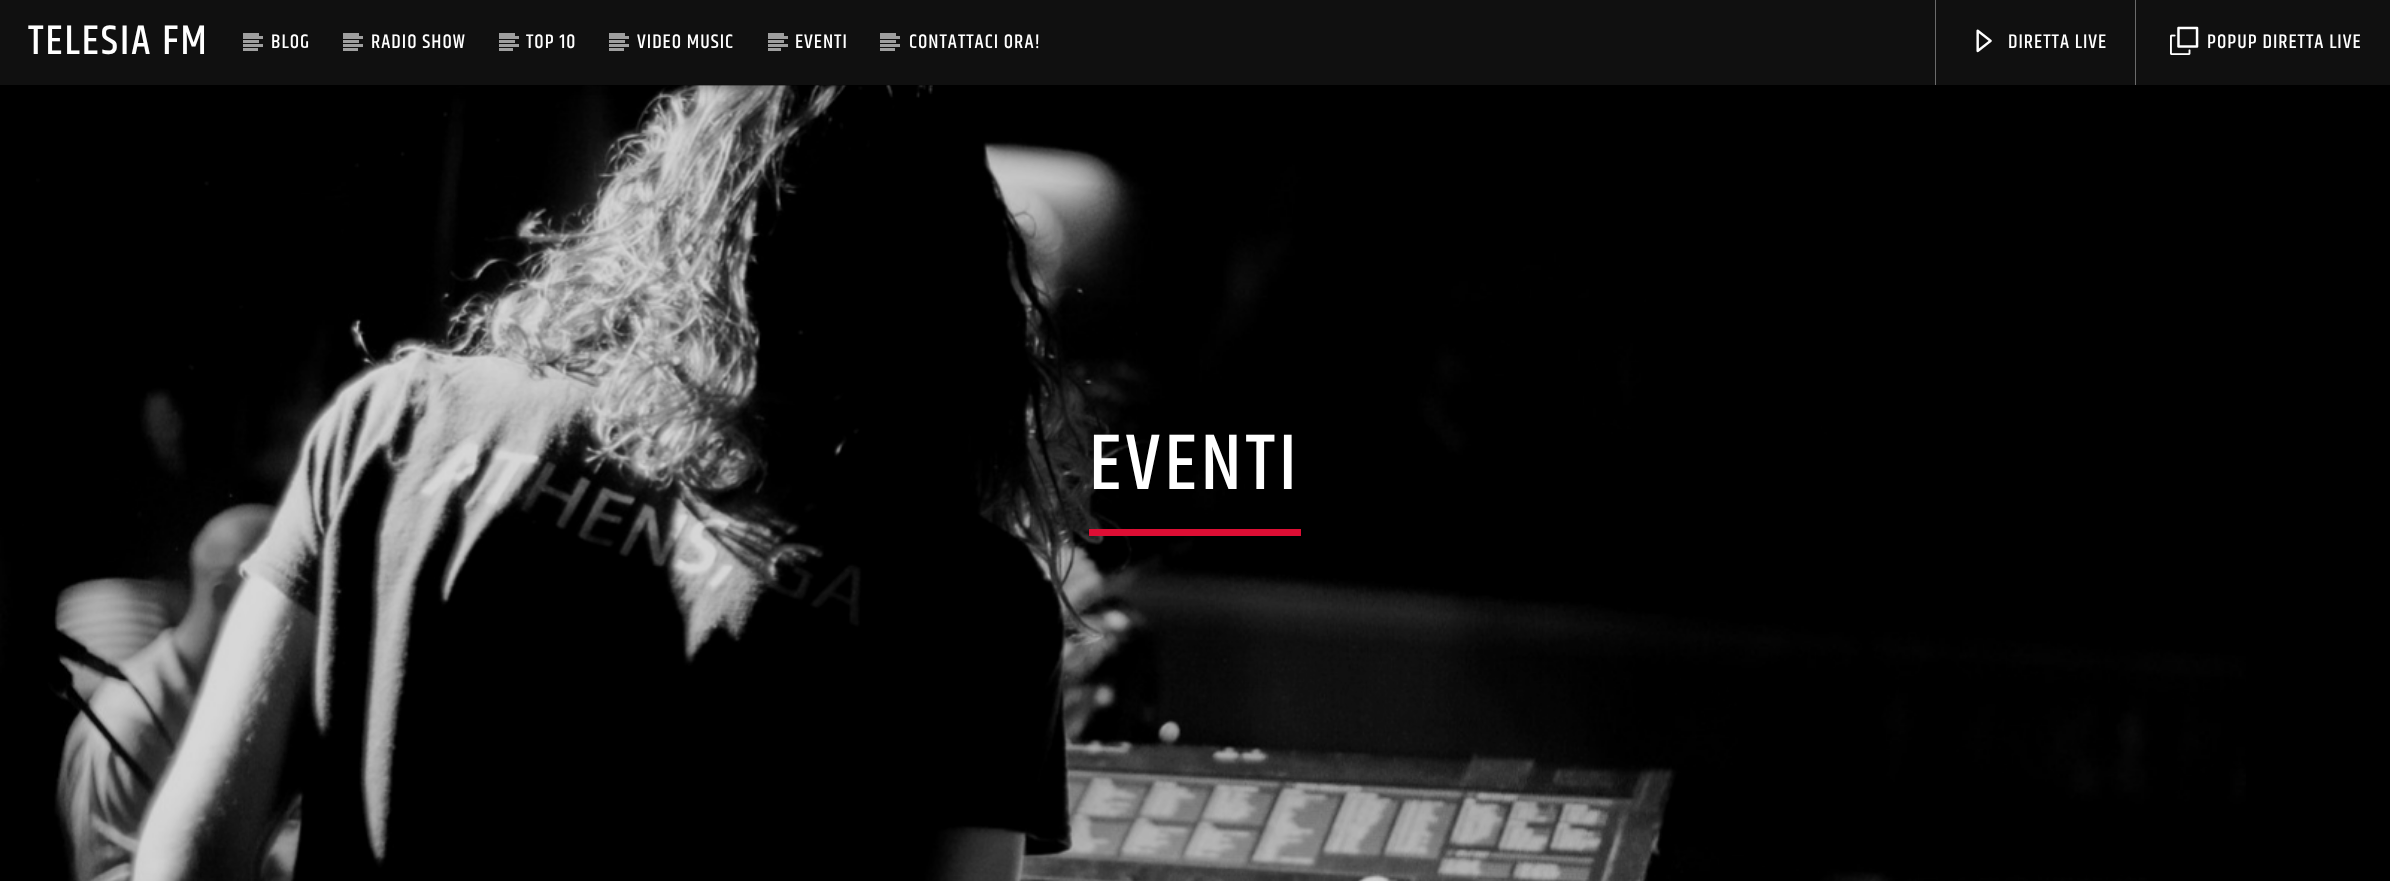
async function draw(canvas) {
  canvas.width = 2390;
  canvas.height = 881;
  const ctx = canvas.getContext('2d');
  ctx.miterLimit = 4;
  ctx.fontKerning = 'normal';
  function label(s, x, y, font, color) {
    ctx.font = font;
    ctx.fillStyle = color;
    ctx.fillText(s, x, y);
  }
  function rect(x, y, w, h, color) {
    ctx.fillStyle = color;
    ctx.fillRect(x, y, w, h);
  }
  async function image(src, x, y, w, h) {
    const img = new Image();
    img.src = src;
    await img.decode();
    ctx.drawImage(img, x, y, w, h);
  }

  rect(0, 0, 2390, 881, '#000');
  await image('assets/img3.png', 0, 85, 2246, 796);
  ctx.fillStyle = '#0000001f';
  ctx.filter = 'blur(6px)';
  ctx.beginPath();
  ctx.rect(0, 3, 2390, 85);
  ctx.fill();
  ctx.filter = 'none';
  ctx.fillStyle = '#00000029';
  ctx.filter = 'blur(3px)';
  ctx.beginPath();
  ctx.rect(0, 3, 2390, 85);
  ctx.fill();
  ctx.filter = 'none';
  rect(0, 0, 2390, 85, '#101010');
  ctx.letterSpacing = '2.1px';
  label('TELESIA FM', 28, 54, '500 42px Khand', '#fff');
  rect(243, 33, 16, 3, '#9f9f9f');
  rect(243, 40, 16, 3, '#9f9f9f');
  ctx.letterSpacing = '1px';
  label('BLOG', 271, 48, '500 20px Khand', '#fff');
  rect(243, 36, 20, 3, '#9f9f9f');
  rect(243, 44, 20, 3, '#9f9f9f');
  rect(243, 48, 15, 3, '#9f9f9f');
  rect(343, 33, 16, 3, '#9f9f9f');
  rect(343, 40, 16, 3, '#9f9f9f');
  label('RADIO SHOW', 371, 48, '500 20px Khand', '#fff');
  rect(343, 36, 20, 3, '#9f9f9f');
  rect(343, 44, 20, 3, '#9f9f9f');
  rect(343, 48, 15, 3, '#9f9f9f');
  rect(499, 33, 16, 3, '#9f9f9f');
  rect(499, 40, 16, 3, '#9f9f9f');
  label('TOP 10', 526, 48, '500 20px Khand', '#fff');
  rect(499, 36, 20, 3, '#9f9f9f');
  rect(499, 44, 20, 3, '#9f9f9f');
  rect(499, 48, 14, 3, '#9f9f9f');
  rect(609, 33, 16, 3, '#9f9f9f');
  rect(609, 40, 16, 3, '#9f9f9f');
  label('VIDEO MUSIC', 637, 48, '500 20px Khand', '#fff');
  rect(609, 36, 20, 3, '#9f9f9f');
  rect(609, 44, 20, 3, '#9f9f9f');
  rect(609, 48, 15, 3, '#9f9f9f');
  rect(768, 33, 16, 3, '#9f9f9f');
  rect(768, 40, 16, 3, '#9f9f9f');
  label('EVENTI', 795, 48, '500 20px Khand', '#fff');
  rect(768, 36, 20, 3, '#9f9f9f');
  rect(768, 44, 20, 3, '#9f9f9f');
  rect(768, 48, 13, 3, '#9f9f9f');
  rect(880, 33, 16, 3, '#9f9f9f');
  rect(880, 40, 16, 3, '#9f9f9f');
  label('CONTATTACI ORA!', 909, 48, '500 20px Khand', '#fff');
  rect(880, 36, 20, 3, '#9f9f9f');
  rect(880, 44, 20, 3, '#9f9f9f');
  rect(880, 48, 15, 3, '#9f9f9f');
  rect(1935, 0, 1, 85, '#6b6b6b');
  await image('assets/img1.png', 1976, 29, 16, 24);
  label('DIRETTA LIVE', 2008, 48, '500 20px Khand', '#fff');
  rect(2135, 0, 1, 85, '#6b6b6b');
  await image('assets/img2.png', 2170, 26, 29, 29);
  label('POPUP DIRETTA LIVE', 2207, 48, '500 20px Khand', '#fff');
  rect(1089, 529, 212, 7, '#dd0e34');
  ctx.letterSpacing = '4px';
  label('EVENTI', 1089, 489, '500 80px Khand', '#fff');
}

draw(document.querySelector('canvas'));
